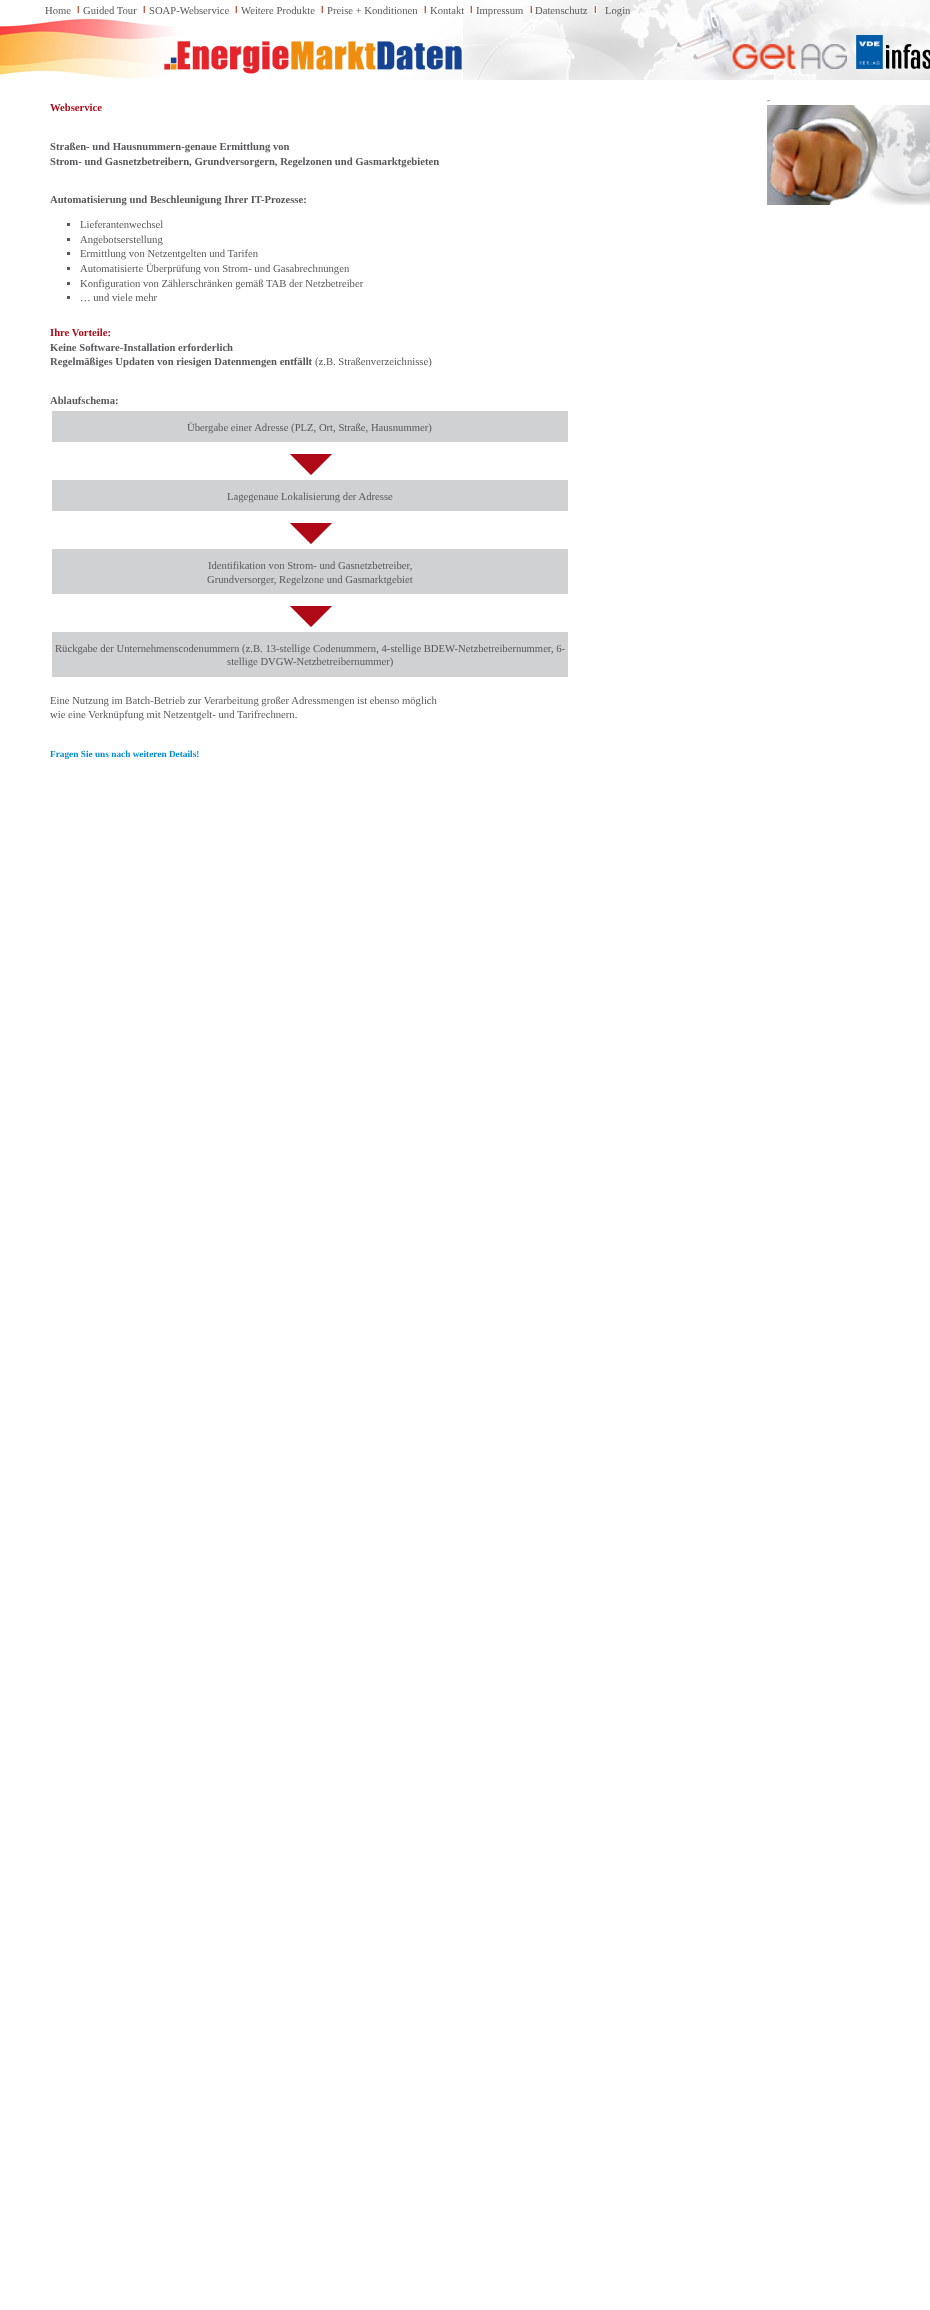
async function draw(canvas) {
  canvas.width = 930;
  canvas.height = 2310;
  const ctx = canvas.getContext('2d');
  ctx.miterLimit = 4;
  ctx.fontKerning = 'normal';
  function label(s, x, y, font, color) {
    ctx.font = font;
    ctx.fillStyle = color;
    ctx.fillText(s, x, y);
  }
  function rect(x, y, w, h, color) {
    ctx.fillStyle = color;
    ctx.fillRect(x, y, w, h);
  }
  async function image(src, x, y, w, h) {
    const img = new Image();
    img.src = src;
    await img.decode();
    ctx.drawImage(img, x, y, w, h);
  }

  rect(0, 0, 930, 2310, '#fff');
  await image('assets/img1.png', 0, 0, 930, 80);
  label('Home', 45, 14, '10.65px Liberation Serif', '#58585a');
  await image('assets/img2.png', 77, 6, 2, 7);
  label('Guided Tour', 83, 14, '10.65px Liberation Serif', '#58585a');
  await image('assets/img2.png', 143, 6, 2, 7);
  label('SOAP-Webservice', 149, 14, '10.65px Liberation Serif', '#58585a');
  await image('assets/img2.png', 235, 6, 2, 7);
  label('Weitere Produkte', 241, 14, '10.65px Liberation Serif', '#58585a');
  await image('assets/img2.png', 321, 6, 2, 7);
  label('Preise + Konditionen', 327, 14, '10.65px Liberation Serif', '#58585a');
  await image('assets/img2.png', 424, 6, 2, 7);
  label('Kontakt', 430, 14, '10.65px Liberation Serif', '#58585a');
  await image('assets/img3.png', 469, 6, 4, 8);
  label('Impressum', 476, 14, '10.65px Liberation Serif', '#58585a');
  await image('assets/img4.png', 529, 5, 4, 9);
  label('Datenschutz', 535, 14, '10.65px Liberation Serif', '#58585a');
  await image('assets/img4.png', 593, 5, 4, 9);
  label('Login', 605, 14, '10.65px Liberation Serif', '#58585a');
  await image('assets/img5.png', 732, 44, 115, 25);
  await image('assets/img6.png', 856, 35, 27, 34);
  await image('assets/img7.png', 886, 44, 44, 25);
  label('-', 767, 103, '9.3px Liberation Serif', '#58585a');
  await image('assets/img8.png', 767, 105, 163, 100);
  label('Webservice', 50, 111, 'bold 10.65px Liberation Serif', '#af0917');
  label('Straßen- und Hausnummern-genaue Ermittlung von', 50, 150, 'bold 10.65px Liberation Serif', '#58585a');
  label('Strom- und Gasnetzbetreibern, Grundversorgern, Regelzonen und Gasmarktgebieten', 50, 165, 'bold 10.65px Liberation Serif', '#58585a');
  label('Automatisierung und Beschleunigung Ihrer IT-Prozesse:', 50, 203, 'bold 10.65px Liberation Serif', '#58585a');
  rect(67, 223, 3, 3, '#58585a');
  label('Lieferantenwechsel', 80, 228, '10.65px Liberation Serif', '#58585a');
  rect(67, 238, 3, 3, '#58585a');
  label('Angebotserstellung', 80, 243, '10.65px Liberation Serif', '#58585a');
  rect(67, 252, 3, 3, '#58585a');
  label('Ermittlung von Netzentgelten und Tarifen', 80, 257, '10.65px Liberation Serif', '#58585a');
  rect(67, 267, 3, 3, '#58585a');
  label('Automatisierte Überprüfung von Strom- und Gasabrechnungen', 80, 272, '10.65px Liberation Serif', '#58585a');
  rect(67, 282, 3, 3, '#58585a');
  label('Konfiguration von Zählerschränken gemäß TAB der Netzbetreiber', 80, 287, '10.65px Liberation Serif', '#58585a');
  rect(67, 296, 3, 3, '#58585a');
  label('… und viele mehr', 80, 301, '10.65px Liberation Serif', '#58585a');
  label('Ihre Vorteile:', 50, 336, 'bold 10.65px Liberation Serif', '#af0917');
  label('Keine Software-Installation erforderlich', 50, 351, 'bold 10.65px Liberation Serif', '#58585a');
  label('Regelmäßiges Updaten von riesigen Datenmengen entfällt', 50, 365, 'bold 10.65px Liberation Serif', '#58585a');
  label('(z.B. Straßenverzeichnisse)', 315, 365, '10.65px Liberation Serif', '#58585a');
  label('Ablaufschema:', 50, 404, 'bold 10.65px Liberation Serif', '#58585a');
  rect(52, 411, 516, 31, '#cfd1d2');
  label('Übergabe einer Adresse (PLZ, Ort, Straße, Hausnummer)', 187, 431, '10.65px Liberation Serif', '#58585a');
  await image('assets/img9.png', 290, 454, 42, 21);
  rect(52, 480, 516, 31, '#cfd1d2');
  label('Lagegenaue Lokalisierung der Adresse', 227, 500, '10.65px Liberation Serif', '#58585a');
  await image('assets/img9.png', 290, 523, 42, 21);
  rect(52, 549, 516, 45, '#cfd1d2');
  label('Identifikation von Strom- und Gasnetzbetreiber,', 208, 569, '10.65px Liberation Serif', '#58585a');
  label('Grundversorger, Regelzone und Gasmarktgebiet', 207, 583, '10.65px Liberation Serif', '#58585a');
  await image('assets/img9.png', 290, 606, 42, 21);
  rect(52, 632, 516, 45, '#cfd1d2');
  label('Rückgabe der Unternehmenscodenummern (z.B. 13-stellige Codenummern, 4-stellige BDEW-Netzbetreibernummer, 6-', 55, 652, '10.65px Liberation Serif', '#58585a');
  label('stellige DVGW-Netzbetreibernummer)', 227, 665, '10.65px Liberation Serif', '#58585a');
  label('Eine Nutzung im Batch-Betrieb zur Verarbeitung großer Adressmengen ist ebenso möglich', 50, 704, '10.65px Liberation Serif', '#58585a');
  label('wie eine Verknüpfung mit Netzentgelt- und Tarifrechnern.', 50, 718, '10.65px Liberation Serif', '#58585a');
  label('Fragen Sie uns nach weiteren Details!', 50, 757, 'bold 9.3px Liberation Serif', '#008bd0');
}

draw(document.querySelector('canvas'));
